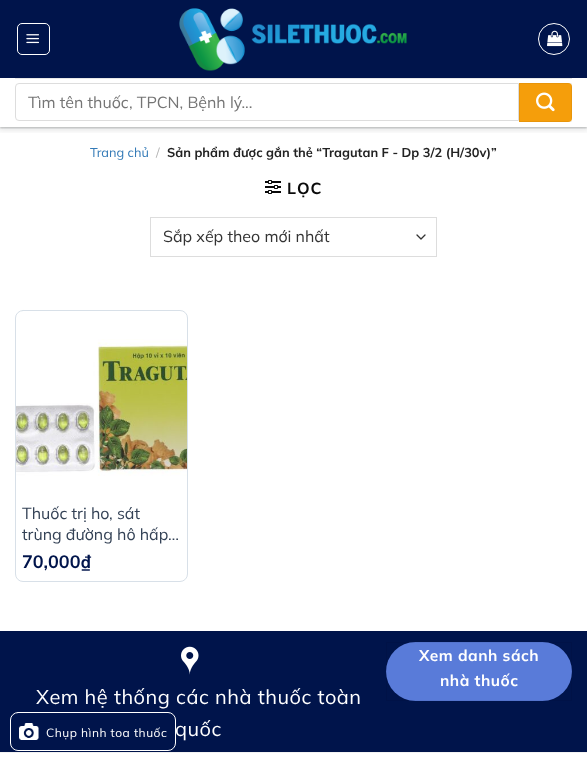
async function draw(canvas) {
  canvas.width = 587;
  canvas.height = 761;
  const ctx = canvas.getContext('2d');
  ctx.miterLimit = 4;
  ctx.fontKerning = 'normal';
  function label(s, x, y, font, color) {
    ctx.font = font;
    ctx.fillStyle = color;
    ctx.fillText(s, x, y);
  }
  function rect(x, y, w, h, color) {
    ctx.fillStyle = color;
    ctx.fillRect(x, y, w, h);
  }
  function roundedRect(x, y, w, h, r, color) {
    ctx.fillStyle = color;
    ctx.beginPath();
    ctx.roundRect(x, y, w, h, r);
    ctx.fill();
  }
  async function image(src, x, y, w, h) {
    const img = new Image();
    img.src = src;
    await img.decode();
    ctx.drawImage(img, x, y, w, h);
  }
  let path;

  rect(0, 0, 587, 761, '#fff');
  ctx.save();
  ctx.beginPath();
  ctx.rect(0, 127, 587, 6);
  ctx.clip();
  ctx.fillStyle = '#3c404326';
  ctx.filter = 'blur(3px)';
  ctx.beginPath();
  ctx.rect(-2, 77, 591, 53);
  ctx.fill();
  ctx.filter = 'none';
  ctx.restore();
  ctx.save();
  ctx.beginPath();
  ctx.rect(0, 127, 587, 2);
  ctx.clip();
  ctx.fillStyle = '#3c40434d';
  ctx.filter = 'blur(1px)';
  ctx.beginPath();
  ctx.rect(0, 79, 587, 49);
  ctx.fill();
  ctx.filter = 'none';
  ctx.restore();
  rect(0, 0, 587, 78, '#00144b');
  ctx.beginPath();
  ctx.roundRect(17.5, 23.5, 32, 31, 4.5);
  ctx.strokeStyle = '#fff';
  ctx.stroke();
  await image('assets/img1.png', 26, 34, 13, 10);
  await image('assets/img2.png', 179, 8, 228, 63);
  ctx.beginPath();
  ctx.arc(554, 39, 15.5, 0, 2 * Math.PI);
  ctx.stroke();
  await image('assets/img3.png', 547, 30, 16, 17);
  rect(15, 78, 557, 1, '#e7e7e7');
  ctx.beginPath();
  ctx.roundRect(15.5, 83.5, 503, 37, [3.5, 0, 0, 3.5]);
  ctx.strokeStyle = '#ddd';
  ctx.stroke();
  label('Tìm tên thuốc, TPCN, Bệnh lý...', 28, 108, '16px Mulish', '#757575');
  ctx.fillStyle = '#f59e0b';
  ctx.beginPath();
  ctx.roundRect(519, 83, 53, 39, [0, 4, 4, 0]);
  ctx.fill();
  ctx.strokeStyle = '#0000000d';
  ctx.strokeRect(519.5, 83.5, 52, 38);
  await image('assets/img4.png', 536, 92, 19, 20);
  label('Trang chủ', 90, 157, '12.8px Mulish', '#337ab7');
  label('/', 156, 157, '12.8px Mulish', '#b2b2b2');
  label('Sản phẩm được gắn thẻ “Tragutan F - Dp 3/2 (H/30v)”', 167, 157, 'bold 12.8px Mulish', '#222');
  await image('assets/img5.png', 265, 180, 16, 14);
  ctx.letterSpacing = '1px';
  label('LỌC', 287, 194, 'bold 16px Mulish', '#0a0a0a');
  path = new Path2D('M417 235L421 239L425 235');
  ctx.strokeStyle = '#333';
  ctx.lineWidth = 1.3;
  ctx.lineCap = 'round';
  ctx.lineJoin = 'round';
  ctx.stroke(path);
  ctx.strokeStyle = '#ddd';
  ctx.lineWidth = 1;
  ctx.lineJoin = 'miter';
  ctx.strokeRect(150.5, 217.5, 286, 39);
  ctx.letterSpacing = '0px';
  label('Sắp xếp theo mới nhất', 163, 242, '16px Mulish', '#333');
  ctx.beginPath();
  ctx.roundRect(15.5, 310.5, 172, 271, 7.5);
  ctx.strokeStyle = '#d8e0e8';
  ctx.stroke();
  await image('assets/img6.png', 16, 339, 171, 137);
  label('Thuốc trị ho, sát', 22, 519, '16px Mulish', '#334155');
  label('trùng đường hô hấp…', 22, 540, '16px Mulish', '#334155');
  label('70,000₫', 22, 568, 'bold 18px Mulish', '#00144b');
  rect(0, 632, 587, 120, '#00144b');
  rect(0, 631, 587, 1, '#001347');
  roundedRect(386, 642, 186, 59, 29.5, '#597bd9');
  ctx.strokeStyle = '#0000000d';
  ctx.strokeRect(386.5, 642.5, 185, 58);
  ctx.letterSpacing = '0.5px';
  label('Xem danh sách', 419, 661, 'bold 15.5px Mulish', '#fff');
  label('nhà thuốc', 440, 686, 'bold 15.5px Mulish', '#fff');
  await image('assets/img7.png', 181, 646, 18, 29);
  label('Xem hệ thống các nhà thuốc toàn', 36, 704, '20px Mulish', '#fff');
  label('quốc', 175, 736, '20px Mulish', '#fff');
  ctx.fillStyle = '#00144b';
  ctx.beginPath();
  ctx.roundRect(10.5, 712.5, 165, 38, 7.5);
  ctx.fill();
  ctx.strokeStyle = '#fff';
  ctx.stroke();
  await image('assets/img8.png', 19, 723, 20, 17);
  label('Chụp hình toa thuốc', 46, 737, '12px Mulish', '#fff');
  rect(0, 752, 587, 1, '#f2f2f2');
}

draw(document.querySelector('canvas'));
